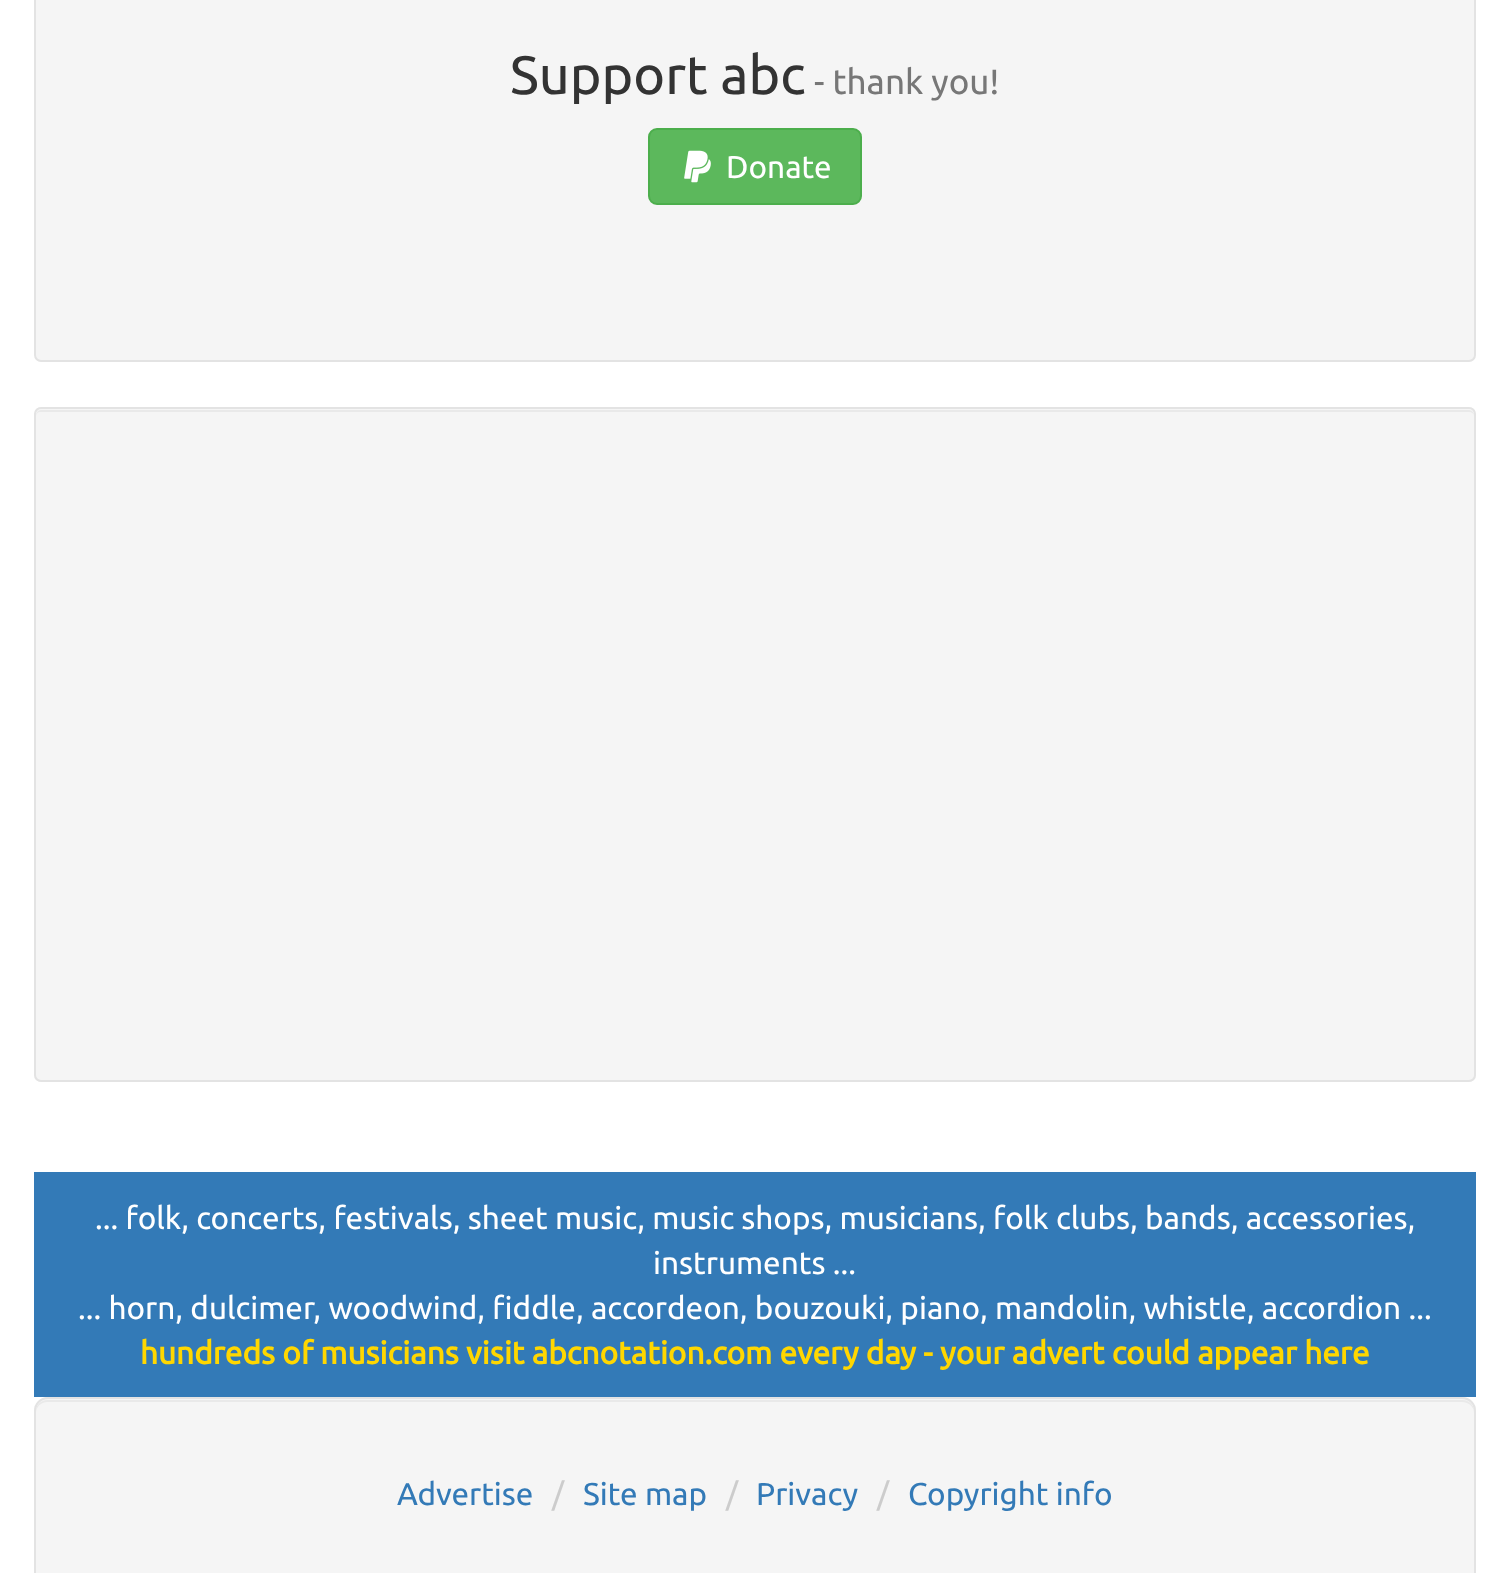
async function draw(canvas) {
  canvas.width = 1508;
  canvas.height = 1573;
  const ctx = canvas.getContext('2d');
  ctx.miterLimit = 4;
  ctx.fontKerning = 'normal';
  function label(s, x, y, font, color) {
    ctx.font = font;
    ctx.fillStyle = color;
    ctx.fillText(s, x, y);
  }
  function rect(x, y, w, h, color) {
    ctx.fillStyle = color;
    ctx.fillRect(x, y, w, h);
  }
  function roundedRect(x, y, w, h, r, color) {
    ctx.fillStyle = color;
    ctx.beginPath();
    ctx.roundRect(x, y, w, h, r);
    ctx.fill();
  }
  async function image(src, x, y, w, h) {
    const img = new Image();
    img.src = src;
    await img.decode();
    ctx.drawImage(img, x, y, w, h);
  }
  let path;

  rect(0, 0, 1508, 1573, '#fff');
  ctx.fillStyle = '#f5f5f5';
  ctx.beginPath();
  ctx.roundRect(35, -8, 1440, 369, 6);
  ctx.fill();
  ctx.strokeStyle = '#e3e3e3';
  ctx.lineWidth = 2;
  ctx.stroke();
  label('Support abc', 510, 94, '54px Ubuntu', '#333');
  label('- thank you!', 814, 94, '35px Ubuntu', '#777');
  ctx.fillStyle = '#5cb85c';
  ctx.beginPath();
  ctx.roundRect(649, 129, 212, 75, 8);
  ctx.fill();
  ctx.strokeStyle = '#4cae4c';
  ctx.stroke();
  await image('assets/img1.png', 684, 150, 27, 33);
  label('Donate', 726, 178, '31.5px Ubuntu', '#fff');
  roundedRect(34, 407, 1442, 675, 7, '#f5f5f5');
  ctx.fillStyle = '#e9e9e9';
  path = new Path2D('M40 412H1469C1472 412 1474 414 1474 416C1474 413 1472 410 1469 410H41C38 410 36 413 36 416C36 414 38 412 40 412Z');
  ctx.fill(path);
  ctx.beginPath();
  ctx.roundRect(35, 408, 1440, 673, 6);
  ctx.strokeStyle = '#e3e3e3';
  ctx.stroke();
  rect(34, 1172, 1442, 225, '#337ab7');
  label('... folk, concerts, festivals, sheet music, music shops, musicians, folk clubs, bands, accessories,', 95, 1229, '31.5px Ubuntu', '#fff');
  label('instruments ...', 653, 1274, '31.5px Ubuntu', '#fff');
  label('... horn, dulcimer, woodwind, fiddle, accordeon, bouzouki, piano, mandolin, whistle, accordion ...', 78, 1319, '31.5px Ubuntu', '#fff');
  label('hundreds of musicians visit abcnotation.com every day - your advert could appear here', 140, 1364, 'bold 31.5px Ubuntu', '#ffd700');
  roundedRect(34, 1397, 1442, 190, 14, '#f5f5f5');
  ctx.fillStyle = '#e9e9e9';
  path = new Path2D('M47 1402H1462C1469 1402 1474 1407 1474 1413V1411C1474 1405 1469 1400 1463 1400H47C41 1400 36 1405 36 1411V1413C36 1407 41 1402 47 1402Z');
  ctx.fill(path);
  ctx.beginPath();
  ctx.roundRect(35, 1398, 1440, 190, 13);
  ctx.stroke();
  label('Advertise', 397, 1505, '31.5px Ubuntu', '#337ab7');
  label('/', 552, 1505, '31.5px Ubuntu', '#ccc');
  label('Site map', 583, 1505, '31.5px Ubuntu', '#337ab7');
  label('/', 726, 1505, '31.5px Ubuntu', '#ccc');
  label('Privacy', 756, 1505, '31.5px Ubuntu', '#337ab7');
  label('/', 877, 1505, '31.5px Ubuntu', '#ccc');
  label('Copyright info', 908, 1505, '31.5px Ubuntu', '#337ab7');
}

draw(document.querySelector('canvas'));
